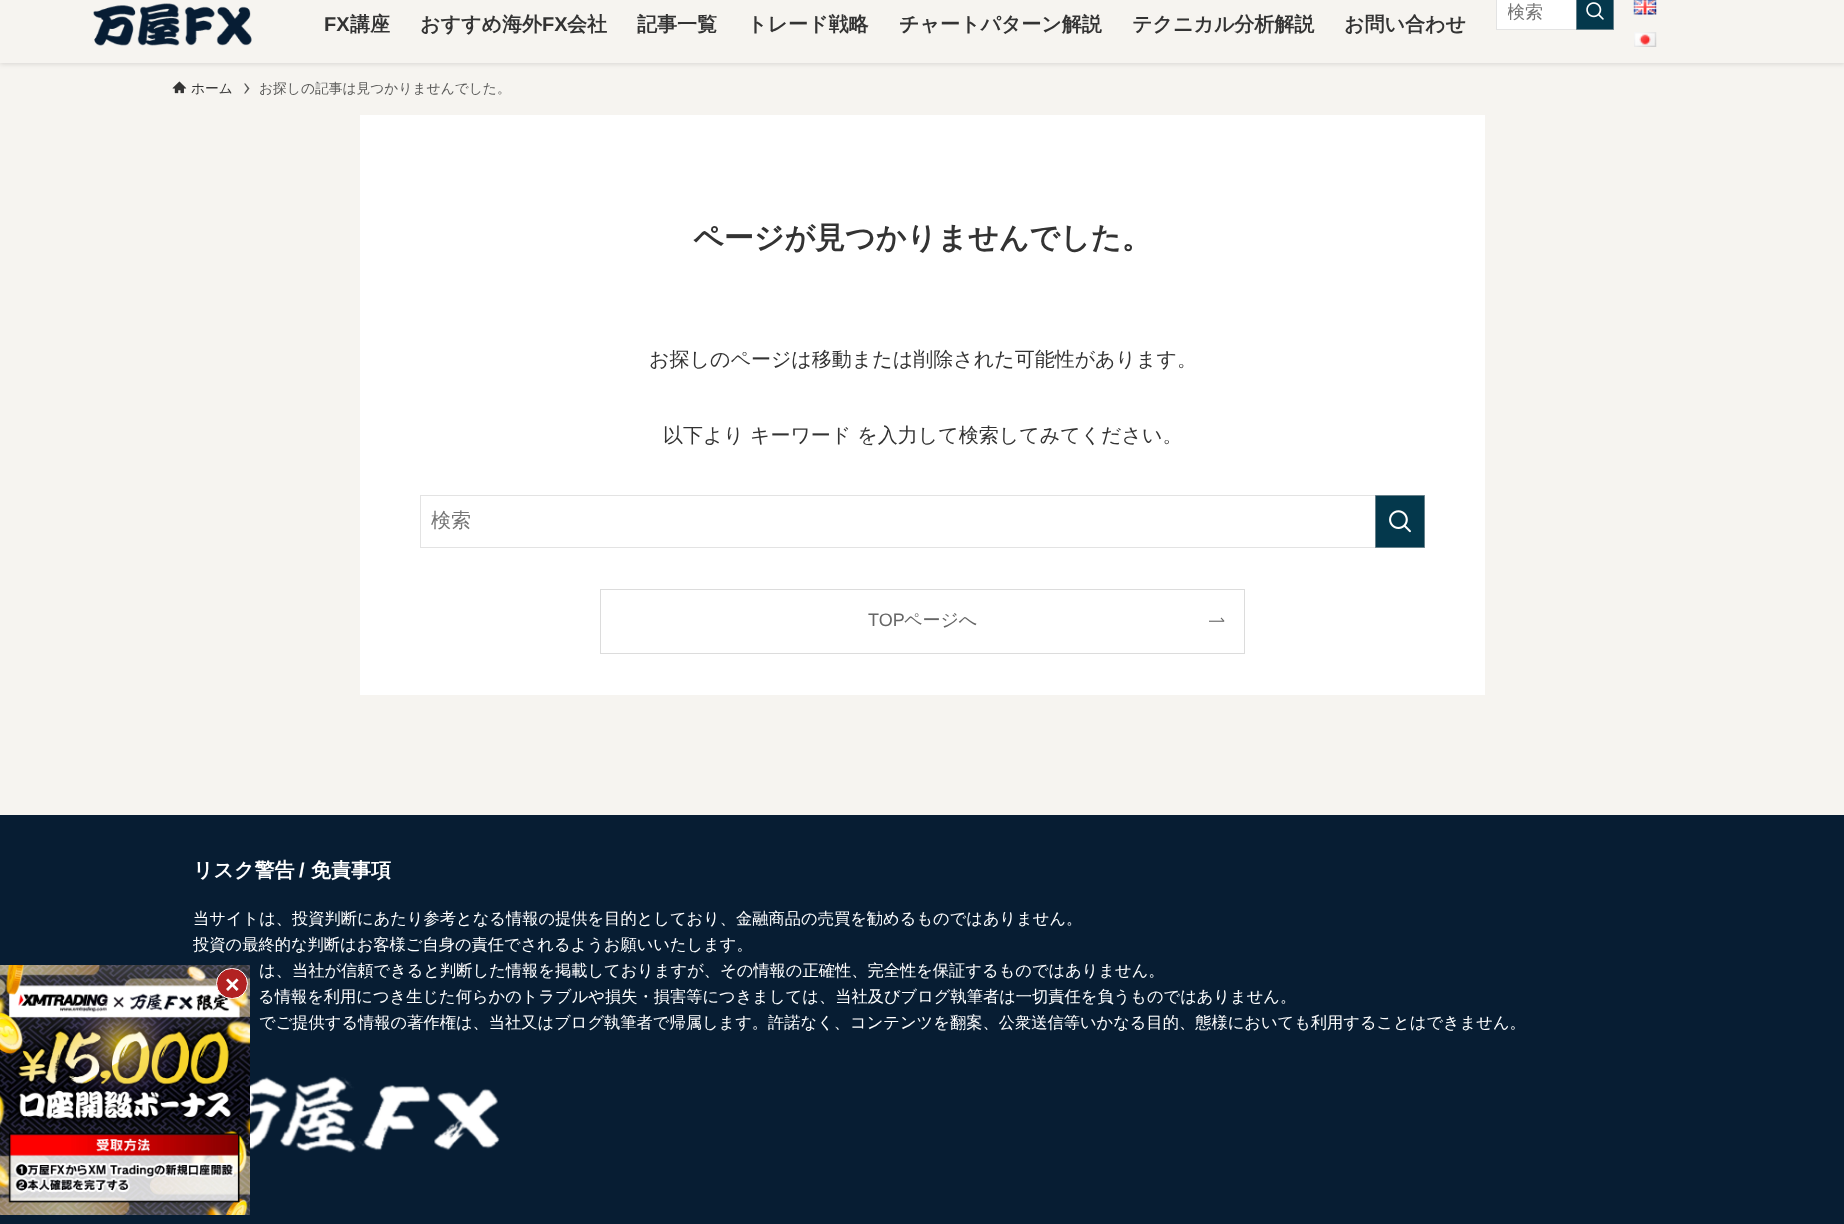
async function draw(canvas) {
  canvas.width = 1844;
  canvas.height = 1224;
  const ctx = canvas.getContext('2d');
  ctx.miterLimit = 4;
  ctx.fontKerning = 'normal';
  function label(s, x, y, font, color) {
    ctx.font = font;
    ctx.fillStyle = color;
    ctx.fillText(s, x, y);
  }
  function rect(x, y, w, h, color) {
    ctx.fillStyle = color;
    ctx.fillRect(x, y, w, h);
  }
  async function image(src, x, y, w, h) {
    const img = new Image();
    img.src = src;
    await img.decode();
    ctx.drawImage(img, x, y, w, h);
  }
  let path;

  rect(0, 0, 1844, 1224, '#f6f4f0');
  ctx.save();
  path = new Path2D('M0 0H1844V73H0ZM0-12H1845V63H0Z');
  ctx.clip(path, 'evenodd');
  ctx.fillStyle = '#0000001f';
  ctx.filter = 'blur(2.5px)';
  ctx.beginPath();
  ctx.rect(0, -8, 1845, 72);
  ctx.fill();
  ctx.filter = 'none';
  ctx.restore();
  await image('assets/img1.png', 93, 3, 159, 43);
  rect(1497, 0, 79, 29, '#fff');
  ctx.strokeStyle = '#e3e3e3';
  ctx.strokeRect(1496.5, -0.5, 117, 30);
  ctx.save();
  ctx.beginPath();
  ctx.rect(1508, 1, 50, 23);
  ctx.clip();
  label('検索', 1507, 18, '500 18px WenQuanYi Zen Hei', '#757575');
  ctx.restore();
  ctx.fillStyle = '#04384c';
  ctx.beginPath();
  ctx.rect(1576.5, -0.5, 37, 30);
  ctx.fill();
  ctx.strokeStyle = '#66808a';
  ctx.stroke();
  await image('assets/img2.png', 1586, 2, 18, 18);
  await image('assets/img3.png', 1633, 0, 24, 15);
  await image('assets/img4.png', 1634, 32, 23, 15);
  label('FX', 324, 31, 'bold 20px Liberation Sans', '#333');
  label('講座', 350, 31, 'bold 20px WenQuanYi Zen Hei', '#333');
  label('おすすめ海外', 420, 31, 'bold 20px WenQuanYi Zen Hei', '#333');
  label('FX', 542, 31, 'bold 20px Liberation Sans', '#333');
  label('会社', 567, 31, 'bold 20px WenQuanYi Zen Hei', '#333');
  label('記事一覧', 637, 31, 'bold 20px WenQuanYi Zen Hei', '#333');
  label('トレード戦略', 747, 31, 'bold 20px WenQuanYi Zen Hei', '#333');
  label('チャートパターン解説', 899, 31, 'bold 20px WenQuanYi Zen Hei', '#333');
  label('テクニカル分析解説', 1132, 31, 'bold 20px WenQuanYi Zen Hei', '#333');
  label('お問い合わせ', 1344, 31, 'bold 20px WenQuanYi Zen Hei', '#333');
  await image('assets/img5.png', 172, 81, 15, 13);
  label('ホーム', 191, 93, '500 13.75px WenQuanYi Zen Hei', '#333');
  ctx.fillStyle = '#5a5a59';
  path = new Path2D('M245.5 83.5H244L247.5 88.5L244 93.5H245.5L249.5 88.5Z');
  ctx.fill(path);
  label('お探しの記事は見つかりませんでした。', 259, 93, '500 13.75px WenQuanYi Zen Hei', '#5a5a59');
  rect(360, 115, 1125, 580, '#fff');
  label('ページが見つかりませんでした。', 693, 248, 'bold 30px WenQuanYi Zen Hei', '#333');
  label('お探しのページは移動または削除された可能性があります。', 649, 366, '500 20px WenQuanYi Zen Hei', '#333');
  label('以下より キーワード を入力して検索してみてください。', 663, 442, '500 20px WenQuanYi Zen Hei', '#333');
  ctx.strokeStyle = '#e3e3e3';
  ctx.strokeRect(420.5, 495.5, 1004, 52);
  label('検索', 431, 527, '500 20px WenQuanYi Zen Hei', '#757575');
  ctx.fillStyle = '#04384c';
  ctx.beginPath();
  ctx.rect(1375.5, 495.5, 49, 52);
  ctx.fill();
  ctx.strokeStyle = '#66808a';
  ctx.stroke();
  await image('assets/img6.png', 1389, 510, 22, 23);
  ctx.strokeStyle = '#dcdcdc';
  ctx.strokeRect(600.5, 589.5, 644, 64);
  label('TOP', 868, 626, '18px Liberation Sans', '#666');
  label('ページへ', 904, 626, '500 18px WenQuanYi Zen Hei', '#666');
  await image('assets/img7.png', 1209, 617, 16, 5);
  rect(0, 815, 1844, 409, '#071d33');
  label('リスク警告', 193, 877, 'bold 20px WenQuanYi Zen Hei', '#fff');
  label('/', 299, 877, 'bold 20px Liberation Sans', '#fff');
  label('免責事項', 311, 877, 'bold 20px WenQuanYi Zen Hei', '#fff');
  label('当サイトは、投資判断にあたり参考となる情報の提供を目的としており、金融商品の売買を勧めるものではありません。', 193, 924, '500 16.25px WenQuanYi Zen Hei', '#fff');
  label('投資の最終的な判断はお客様ご自身の責任でされるようお願いいたします。', 193, 950, '500 16.25px WenQuanYi Zen Hei', '#fff');
  label('は、当社が信頼できると判断した情報を掲載しておりますが、その情報の正確性、完全性を保証するものではありません。', 259, 976, '500 16.25px WenQuanYi Zen Hei', '#fff');
  label('る情報を利用につき生じた何らかのトラブルや損失・損害等につきましては、当社及びブログ執筆者は一切責任を負うものではありません。', 258, 1002, '500 16.25px WenQuanYi Zen Hei', '#fff');
  label('でご提供する情報の著作権は、当社又はブログ執筆者で帰属します。許諾なく、コンテンツを翻案、公衆送信等いかなる目的、態様においても利用することはできません。', 259, 1028, '500 16.25px WenQuanYi Zen Hei', '#fff');
  await image('assets/img8.png', 250, 1076, 250, 77);
  await image('assets/img9.png', 0, 965, 250, 250);
  ctx.fillStyle = '#b22222';
  ctx.beginPath();
  ctx.roundRect(216.5, 968.5, 31, 30, 15);
  ctx.fill();
  ctx.strokeStyle = '#fff';
  ctx.stroke();
  label('×', 225, 993, 'bold 25px Liberation Sans', '#fff');
}

draw(document.querySelector('canvas'));
